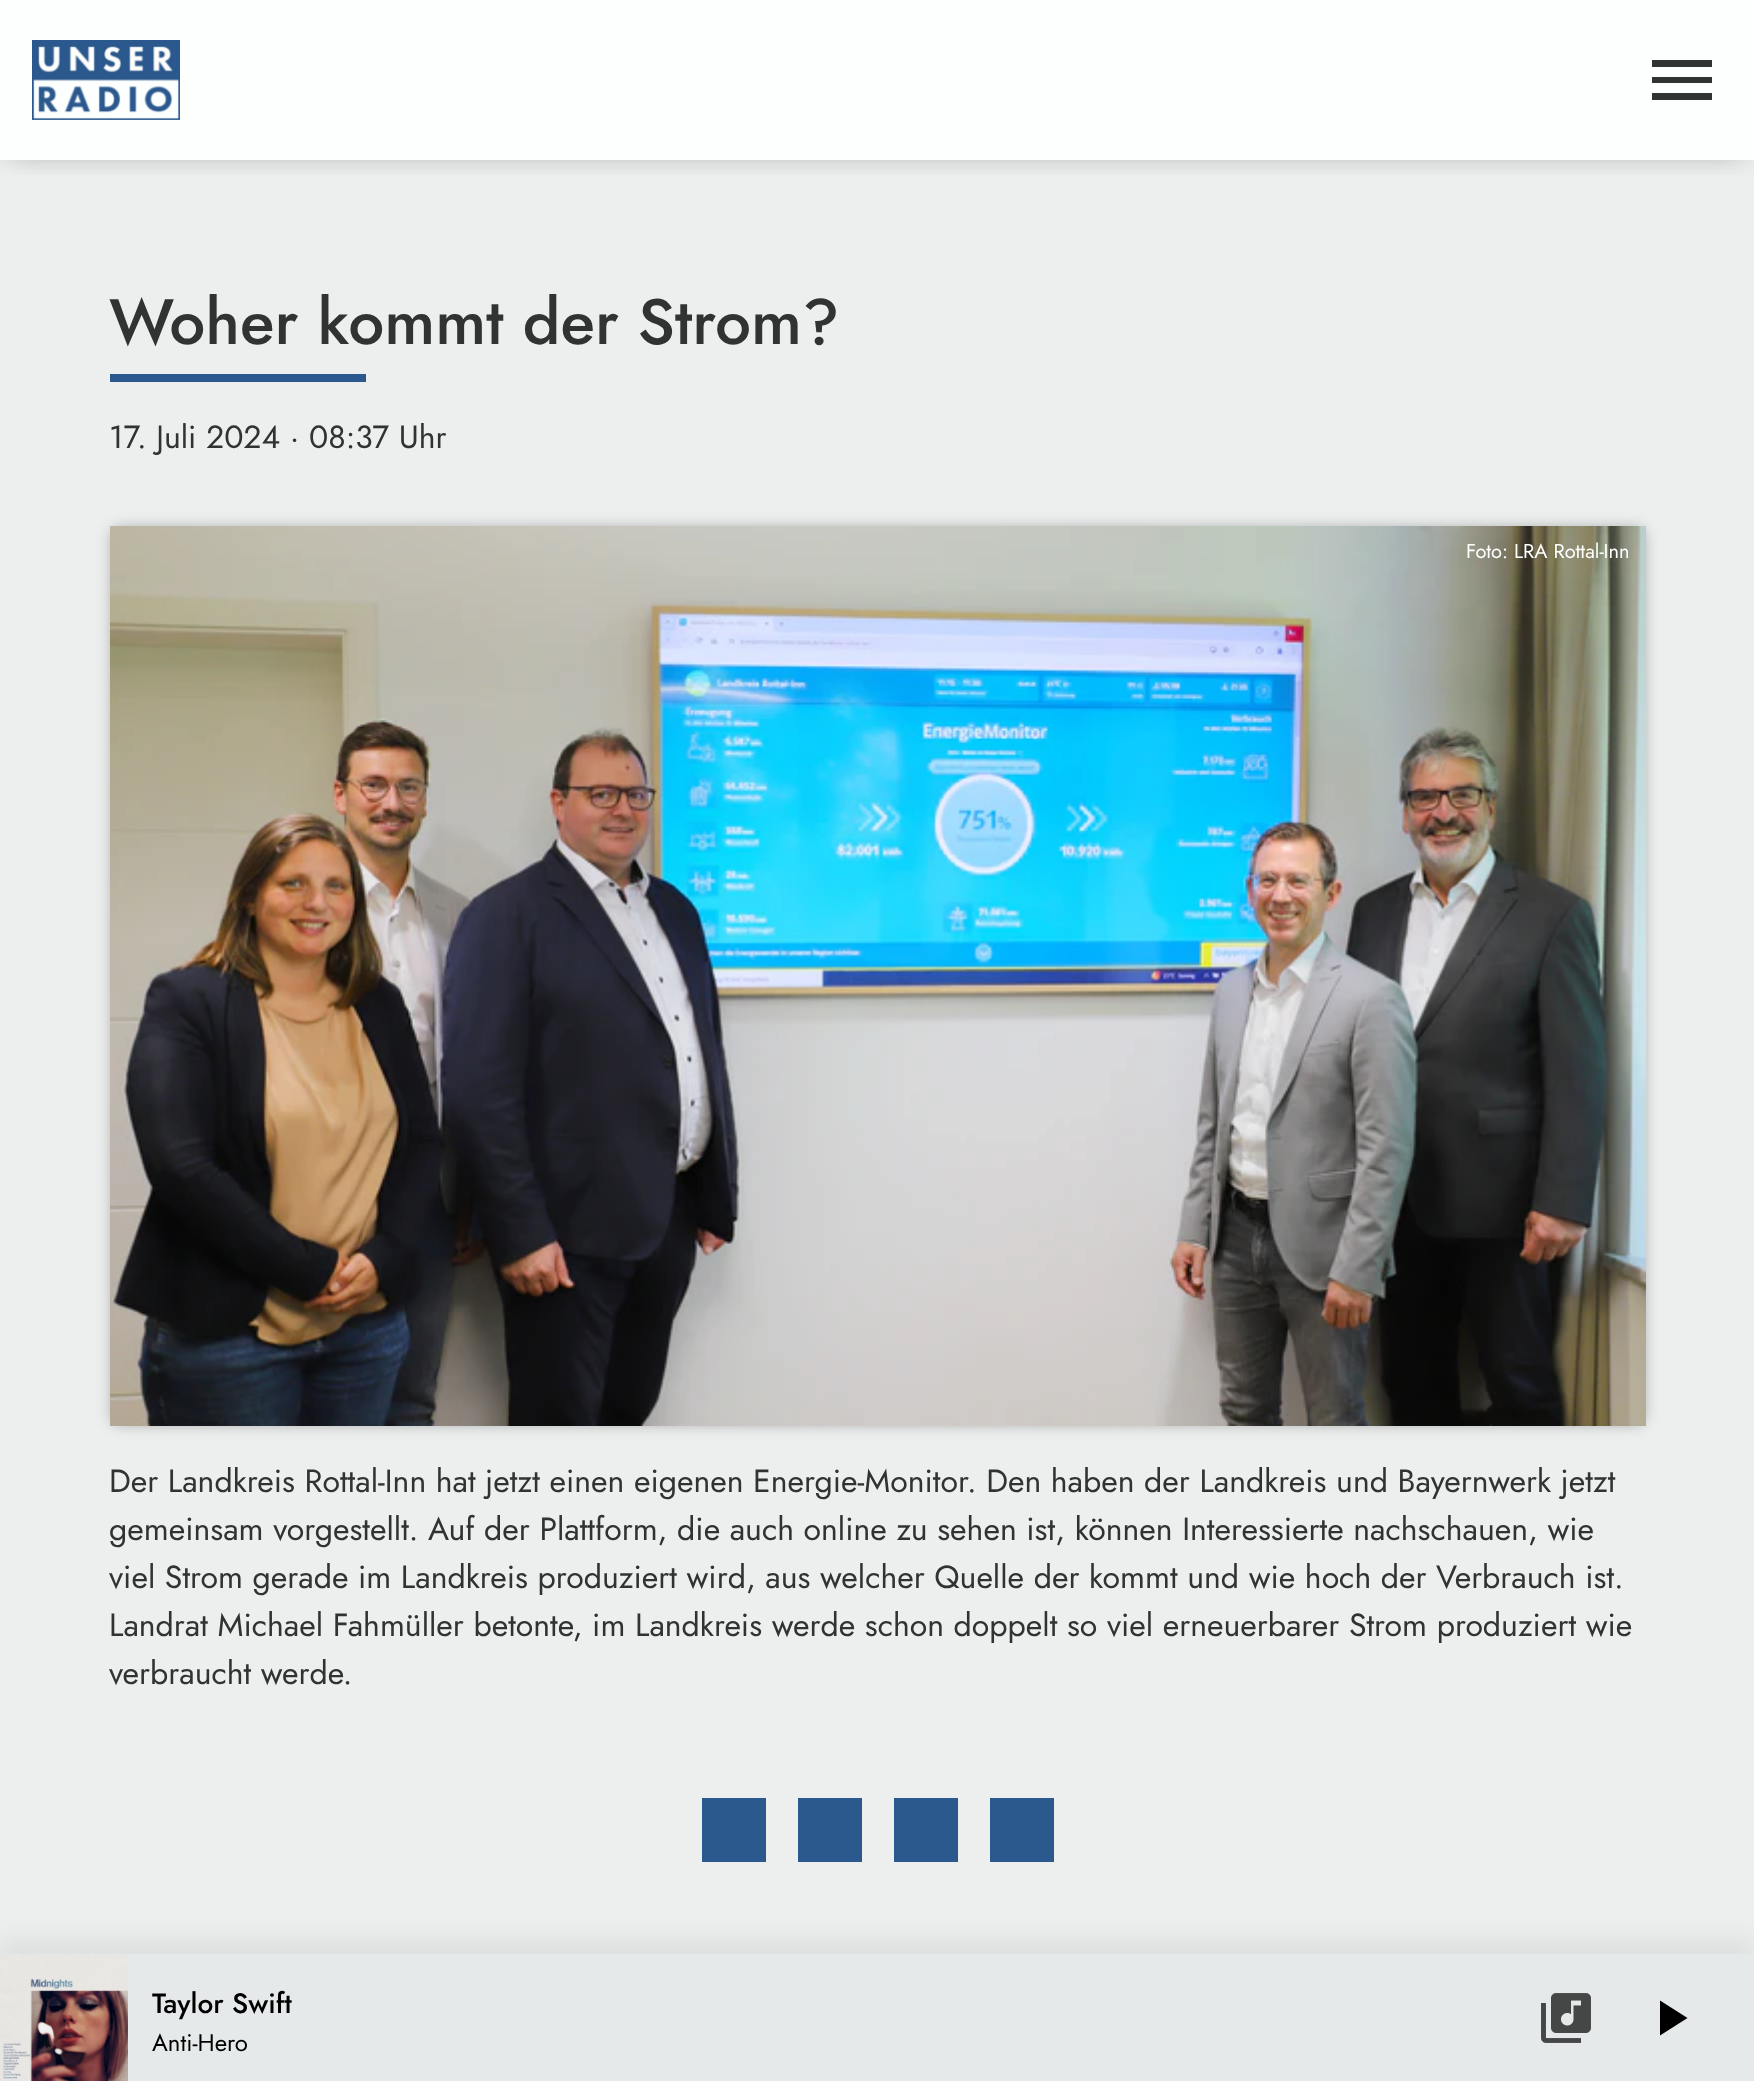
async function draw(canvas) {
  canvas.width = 1754;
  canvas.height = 2081;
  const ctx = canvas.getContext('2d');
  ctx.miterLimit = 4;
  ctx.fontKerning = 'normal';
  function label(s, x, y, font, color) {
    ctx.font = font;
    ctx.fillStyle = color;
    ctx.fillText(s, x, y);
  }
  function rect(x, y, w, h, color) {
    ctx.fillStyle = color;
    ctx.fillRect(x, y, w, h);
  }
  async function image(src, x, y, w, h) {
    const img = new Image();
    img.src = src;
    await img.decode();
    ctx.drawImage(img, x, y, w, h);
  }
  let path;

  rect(0, 0, 1754, 2081, '#fdffff');
  rect(0, 160, 1754, 1794, '#edefef');
  ctx.save();
  ctx.beginPath();
  ctx.rect(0, 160, 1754, 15);
  ctx.clip();
  ctx.fillStyle = '#00000066';
  ctx.filter = 'blur(15px)';
  ctx.beginPath();
  ctx.rect(10, 10, 1734, 140);
  ctx.fill();
  ctx.filter = 'none';
  ctx.restore();
  await image('assets/img1.png', 32, 40, 148, 80);
  ctx.fillStyle = '#313333';
  path = new Path2D('M1652 60H1712V67H1652ZM1652 83V77H1712V83ZM1652 100V93H1712V100Z');
  ctx.fill(path);
  label('Woher kommt der Strom?', 109, 344, '500 64px Jost', '#313333');
  rect(110, 374, 256, 8, '#2b598e');
  label('17. Juli 2024 · 08:37 Uhr', 109, 448, '32px Jost', '#313333');
  ctx.fillStyle = '#00000066';
  ctx.filter = 'blur(8px)';
  ctx.beginPath();
  ctx.rect(114, 530, 1528, 892);
  ctx.fill();
  ctx.filter = 'none';
  await image('assets/img2.png', 110, 526, 1536, 900);
  label('Foto: LRA Rottal-Inn', 1466, 558, '20px Jost', '#fff');
  label('Der Landkreis Rottal-Inn hat jetzt einen eigenen Energie-Monitor. Den haben der Landkreis und Bayernwerk jetzt', 109, 1492, '32px Jost', '#313333');
  label('gemeinsam vorgestellt. Auf der Plattform, die auch online zu sehen ist, können Interessierte nachschauen, wie', 109, 1540, '32px Jost', '#313333');
  label('viel Strom gerade im Landkreis produziert wird, aus welcher Quelle der kommt und wie hoch der Verbrauch ist.', 109, 1588, '32px Jost', '#313333');
  label('Landrat Michael Fahmüller betonte, im Landkreis werde schon doppelt so viel erneuerbarer Strom produziert wie', 109, 1636, '32px Jost', '#313333');
  label('verbraucht werde.', 109, 1684, '32px Jost', '#313333');
  rect(702, 1798, 64, 64, '#2b598e');
  rect(798, 1798, 64, 64, '#2b598e');
  rect(894, 1798, 64, 64, '#2b598e');
  rect(990, 1798, 64, 64, '#2b598e');
  ctx.fillStyle = '#00000080';
  ctx.filter = 'blur(15px)';
  ctx.beginPath();
  ctx.rect(-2, 1952, 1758, 4);
  ctx.fill();
  ctx.filter = 'none';
  rect(128, 1954, 1626, 127, '#e5e9e9');
  await image('assets/img3.png', 0, 1954, 128, 127);
  label('Taylor Swift', 152, 2013, '500 28px Jost', '#000');
  label('Anti-Hero', 152, 2051, '24px Jost', '#000');
  await image('assets/img4.png', 1541, 1993, 50, 50);
  path = new Path2D('M1660 2000.5L1687.5 2018L1660 2035.5Z');
  ctx.fill(path);
}

draw(document.querySelector('canvas'));
